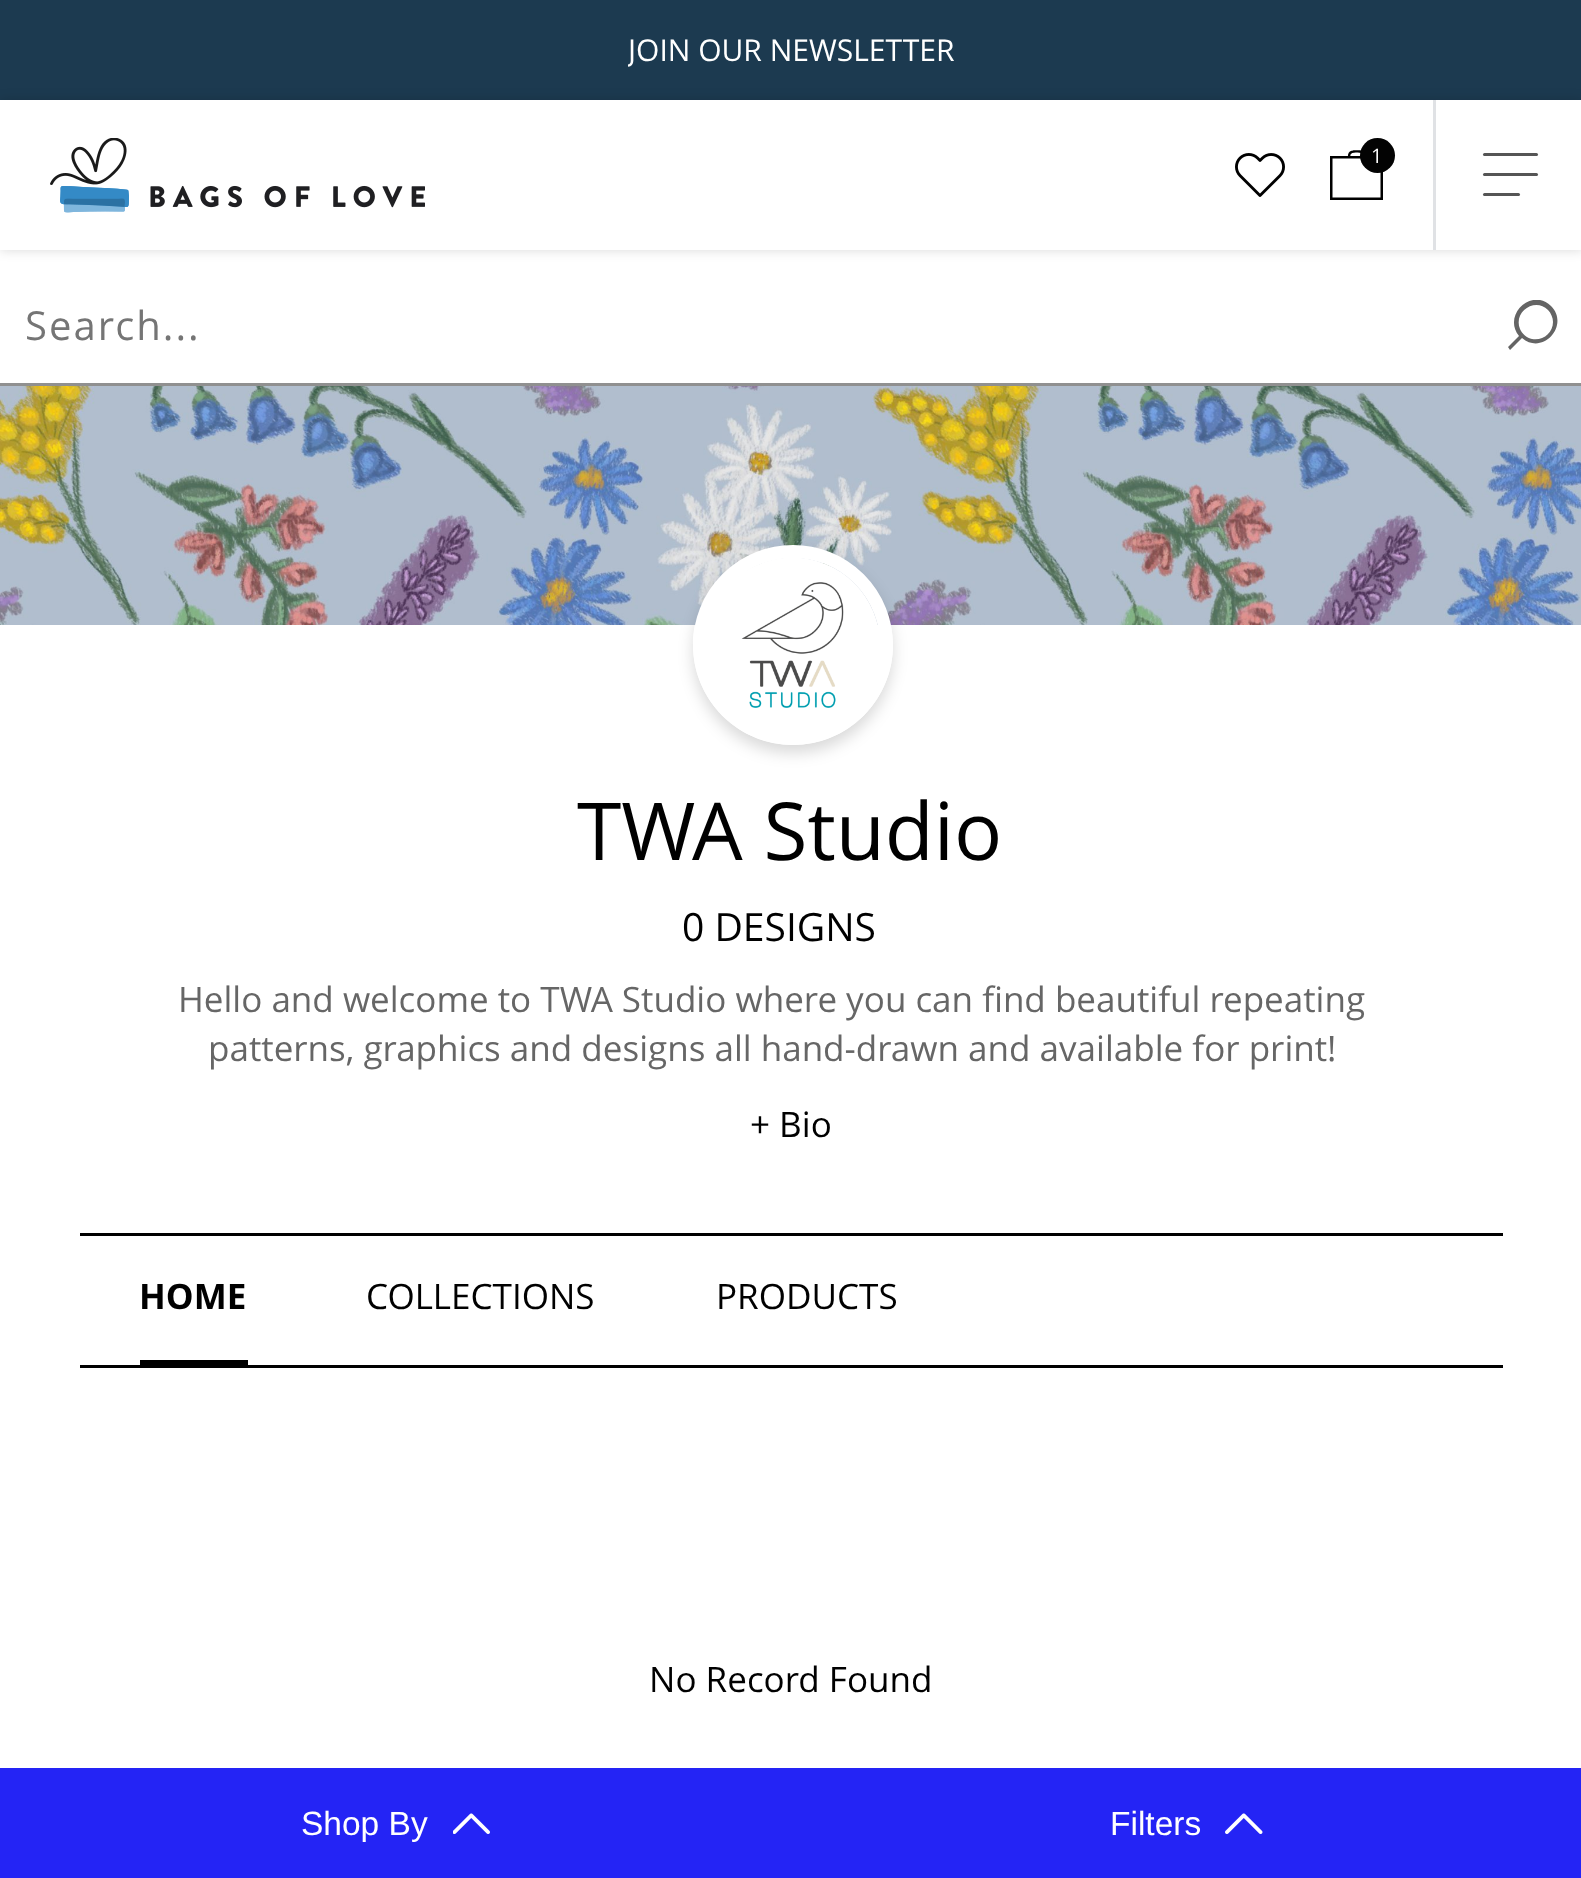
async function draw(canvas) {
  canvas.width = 1581;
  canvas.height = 1878;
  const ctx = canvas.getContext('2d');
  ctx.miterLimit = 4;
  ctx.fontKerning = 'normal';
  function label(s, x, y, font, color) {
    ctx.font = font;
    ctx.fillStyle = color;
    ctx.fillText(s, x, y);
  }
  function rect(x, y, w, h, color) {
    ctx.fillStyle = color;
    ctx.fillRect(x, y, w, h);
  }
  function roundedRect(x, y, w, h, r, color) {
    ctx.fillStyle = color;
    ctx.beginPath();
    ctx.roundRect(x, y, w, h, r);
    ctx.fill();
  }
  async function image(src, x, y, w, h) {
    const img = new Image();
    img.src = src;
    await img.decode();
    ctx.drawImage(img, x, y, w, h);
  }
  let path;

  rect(0, 0, 1581, 1878, '#fff');
  rect(0, 0, 1581, 100, '#1c3a50');
  ctx.save();
  ctx.beginPath();
  ctx.rect(628, 33, 327, 37);
  ctx.clip();
  label('JOIN OUR NEWSLETTER', 628, 61, '30px Open Sans', '#fff');
  ctx.restore();
  ctx.save();
  path = new Path2D('M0 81H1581V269H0ZM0 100H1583V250H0Z');
  ctx.clip(path, 'evenodd');
  ctx.fillStyle = '#00000026';
  ctx.filter = 'blur(6px)';
  ctx.beginPath();
  ctx.rect(0, 100, 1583, 150);
  ctx.fill();
  ctx.filter = 'none';
  ctx.restore();
  await image('assets/img1.png', 50, 138, 375, 75);
  await image('assets/img2.png', 1235, 153, 50, 44);
  ctx.strokeStyle = '#000';
  ctx.lineWidth = 2.5;
  ctx.strokeRect(1331.25, 157.25, 50.5, 41.5);
  path = new Path2D('M1360 151.5C1355.5 151.5 1349 150 1349 156.5M1353.5 151.5C1358 151.5 1364.5 150 1364.5 156.5');
  ctx.lineWidth = 2.3;
  ctx.lineCap = 'round';
  ctx.stroke(path);
  ctx.fillStyle = '#030303';
  ctx.beginPath();
  ctx.arc(1377.5, 155.5, 17.5, 0, 2 * Math.PI);
  ctx.fill();
  label('1', 1371, 163, '20px Open Sans', '#fff');
  rect(1433, 100, 3, 150, '#e0e2e5');
  roundedRect(1483, 173, 55, 3, 1.5, '#555');
  roundedRect(1483, 153, 55, 3, 1.5, '#555');
  roundedRect(1483, 193, 37, 3, 1.5, '#555');
  rect(0, 383, 1581, 3, '#909090');
  ctx.letterSpacing = '2px';
  label('Search...', 25, 340, '40px Open Sans', '#757575');
  ctx.save();
  ctx.beginPath();
  ctx.rect(1508, 300, 50, 50);
  ctx.clip();
  ctx.fillStyle = '#646464';
  path = new Path2D('M1508 347L1519 336C1502 315 1532 287 1551 306C1570 325 1543 356 1522 338L1510 350ZM1553 322C1553 318 1551 313 1548 310C1535 297 1513 312 1520 329C1522 334 1527 338 1532 339C1543 341 1553 333 1553 322Z');
  ctx.fill(path);
  ctx.restore();
  await image('assets/img3.png', 0, 386, 1581, 239);
  ctx.save();
  path = new Path2D('M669 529H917V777H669ZM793 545C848 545 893 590 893 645C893 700 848 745 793 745C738 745 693 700 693 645C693 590 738 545 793 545Z');
  ctx.clip(path, 'evenodd');
  ctx.fillStyle = '#00000026';
  ctx.filter = 'blur(7.5px)';
  ctx.beginPath();
  ctx.roundRect(693, 553, 200, 200, 100);
  ctx.fill();
  ctx.filter = 'none';
  ctx.restore();
  ctx.beginPath();
  ctx.arc(793, 645, 93.5, 0, 2 * Math.PI);
  ctx.strokeStyle = '#fff';
  ctx.lineWidth = 13;
  ctx.stroke();
  await image('assets/img4.png', 708, 558, 170, 150);
  ctx.letterSpacing = '0px';
  label('TWA Studio', 577, 860, '80px Open Sans', '#000');
  label('0 DESIGNS', 682, 941, '39px Open Sans', '#000');
  label('Hello and welcome to TWA Studio where you can find beautiful repeating', 178, 1012, '35px Open Sans', '#666');
  label('patterns, graphics and designs all hand-drawn and available for print!', 208, 1061, '35px Open Sans', '#666');
  label('+ Bio', 750, 1137, '35px Open Sans', '#000');
  rect(80, 1233, 1423, 3, '#000');
  rect(80, 1365, 1423, 3, '#000');
  rect(140, 1360, 108, 5, '#000');
  label('HOME', 139, 1309, 'bold 35px Open Sans', '#000');
  label('COLLECTIONS', 366, 1309, '35px Open Sans', '#000');
  label('PRODUCTS', 716, 1309, '35px Open Sans', '#000');
  label('No Record Found', 649, 1692, '35px Open Sans', '#000');
  rect(0, 1768, 1581, 110, '#2424f5');
  label('Shop By', 301, 1835, '33.5px Liberation Sans', '#fff');
  await image('assets/img5.png', 453, 1813, 37, 21);
  label('Filters', 1110, 1835, '33.5px Liberation Sans', '#fff');
  await image('assets/img6.png', 1225, 1813, 38, 21);
}

draw(document.querySelector('canvas'));
